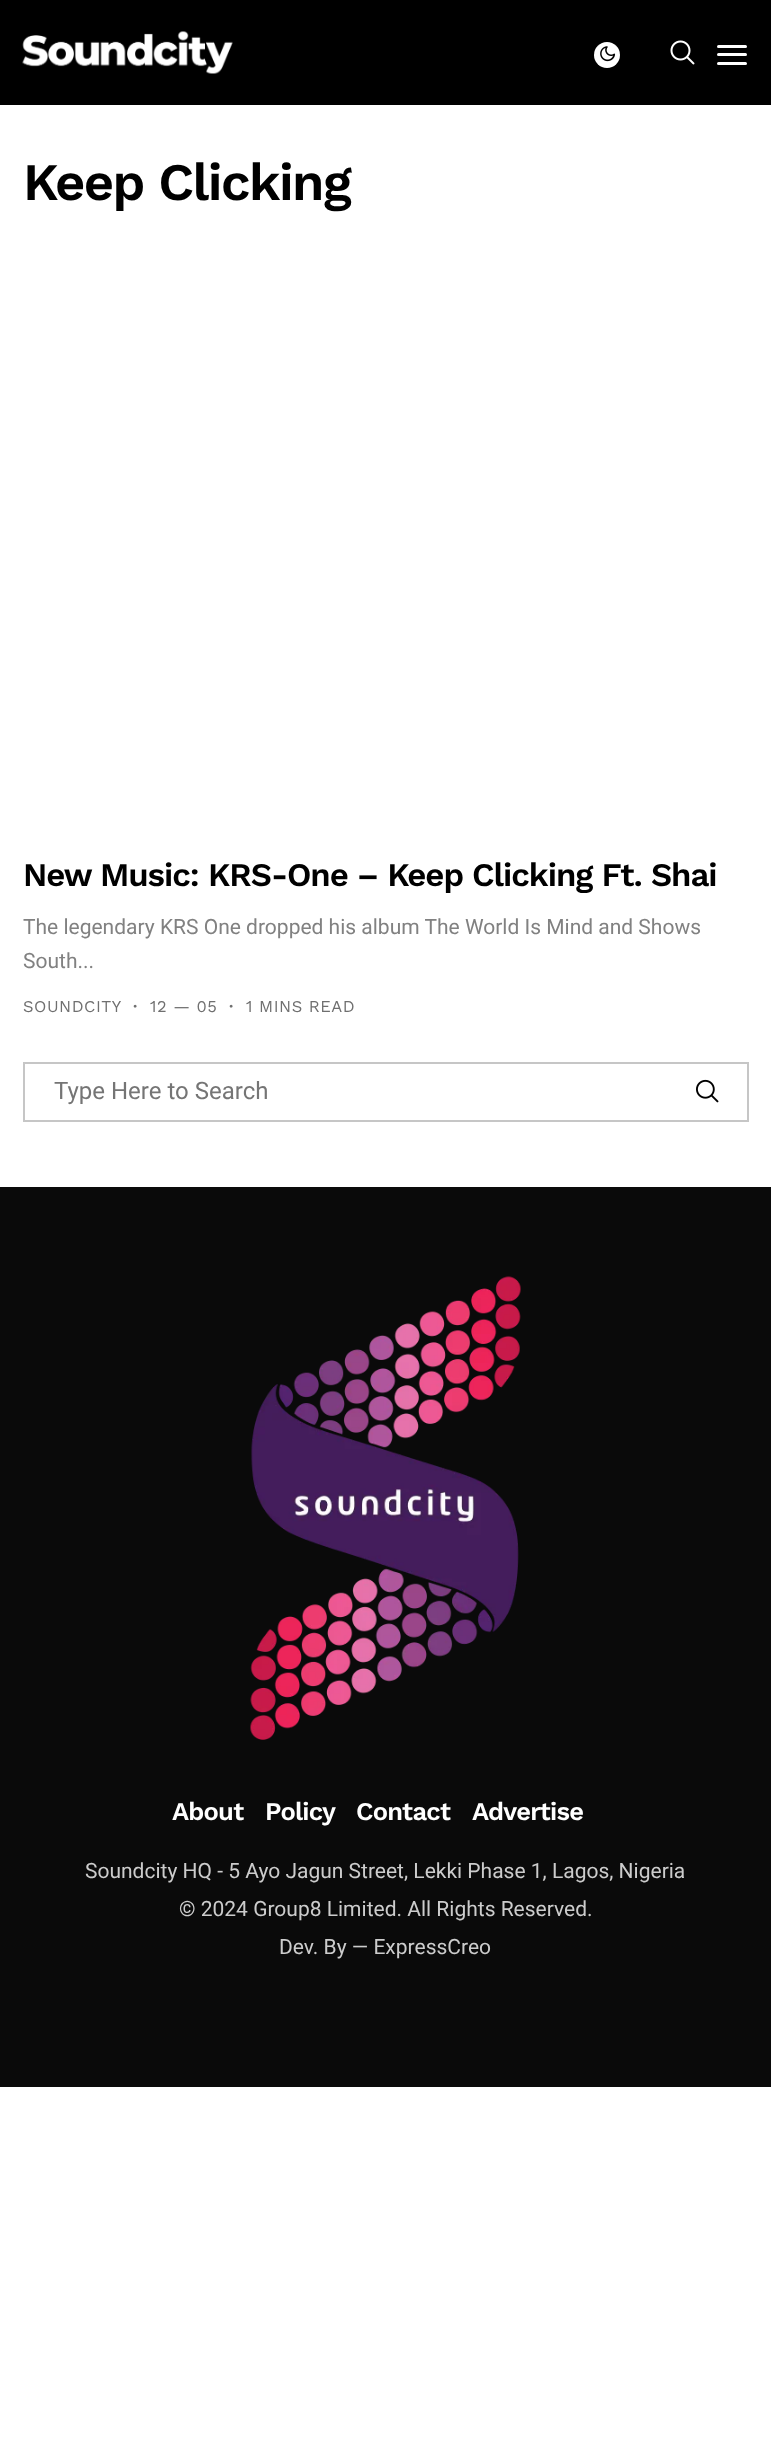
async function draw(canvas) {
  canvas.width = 771;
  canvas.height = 2448;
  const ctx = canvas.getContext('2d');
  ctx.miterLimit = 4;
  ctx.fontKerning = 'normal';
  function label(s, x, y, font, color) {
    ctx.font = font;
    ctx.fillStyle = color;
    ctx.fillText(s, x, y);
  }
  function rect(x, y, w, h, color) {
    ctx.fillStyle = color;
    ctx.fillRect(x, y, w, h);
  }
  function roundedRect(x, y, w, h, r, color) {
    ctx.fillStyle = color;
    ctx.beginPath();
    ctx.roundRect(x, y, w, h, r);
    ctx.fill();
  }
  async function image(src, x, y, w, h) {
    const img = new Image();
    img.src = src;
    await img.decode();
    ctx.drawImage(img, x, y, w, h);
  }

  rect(0, 0, 771, 2448, '#fff');
  rect(0, 0, 771, 105, '#000');
  await image('assets/img1.png', 22, 31, 211, 43);
  ctx.fillStyle = '#fff';
  ctx.beginPath();
  ctx.arc(607, 55, 13, 0, 2 * Math.PI);
  ctx.fill();
  await image('assets/img2.png', 600, 46, 16, 16);
  await image('assets/img3.png', 670, 40, 25, 25);
  roundedRect(717, 45, 30, 3, 1.5, '#fff');
  roundedRect(717, 53, 30, 3, 1.5, '#fff');
  roundedRect(717, 62, 30, 3, 1.5, '#fff');
  ctx.letterSpacing = '-1.6px';
  label('Keep Clicking', 23, 200, '600 52.5px Work Sans', '#000');
  ctx.letterSpacing = '-1.05px';
  label('New Music: KRS-One – Keep Clicking Ft. Shai', 23, 886, '600 33px Work Sans', '#000');
  ctx.letterSpacing = '0px';
  label('The legendary KRS One dropped his album The World Is Mind and Shows', 23, 934, '21px Roboto', '#818181');
  label('South...', 23, 968, '21px Roboto', '#818181');
  ctx.letterSpacing = '0.5px';
  label('SOUNDCITY', 23, 1012, '16.5px Work Sans', '#6f6f6f');
  label('·', 133, 1012, '600 16.5px Work Sans', '#6f6f6f');
  label('12 — 05', 150, 1012, '16.5px Work Sans', '#6f6f6f');
  label('·', 229, 1012, '600 16.5px Work Sans', '#6f6f6f');
  label('1 MINS READ', 246, 1012, '16.5px Work Sans', '#6f6f6f');
  ctx.strokeStyle = '#c6c6c6';
  ctx.lineWidth = 2;
  ctx.strokeRect(24, 1063, 724, 58);
  ctx.letterSpacing = '0px';
  label('Type Here to Search', 54, 1099, '24px Roboto', '#757575');
  await image('assets/img4.png', 696, 1079, 23, 24);
  rect(0, 1187, 771, 900, '#0a0a0a');
  await image('assets/img5.png', 250, 1276, 271, 464);
  ctx.letterSpacing = '-0.75px';
  label('About', 172, 1820, '600 25.5px Work Sans', '#fff');
  label('Policy', 265, 1820, '600 25.5px Work Sans', '#fff');
  label('Contact', 356, 1820, '600 25.5px Work Sans', '#fff');
  label('Advertise', 472, 1820, '600 25.5px Work Sans', '#fff');
  ctx.letterSpacing = '0px';
  label('Soundcity HQ - 5 Ayo Jagun Street, Lekki Phase 1, Lagos, Nigeria', 85, 1878, '21px Roboto', '#ccc');
  label('© 2024 Group8 Limited. All Rights Reserved.', 179, 1916, '21px Roboto', '#ccc');
  label('Dev. By — ExpressCreo', 279, 1954, '21px Roboto', '#ccc');
}

draw(document.querySelector('canvas'));
